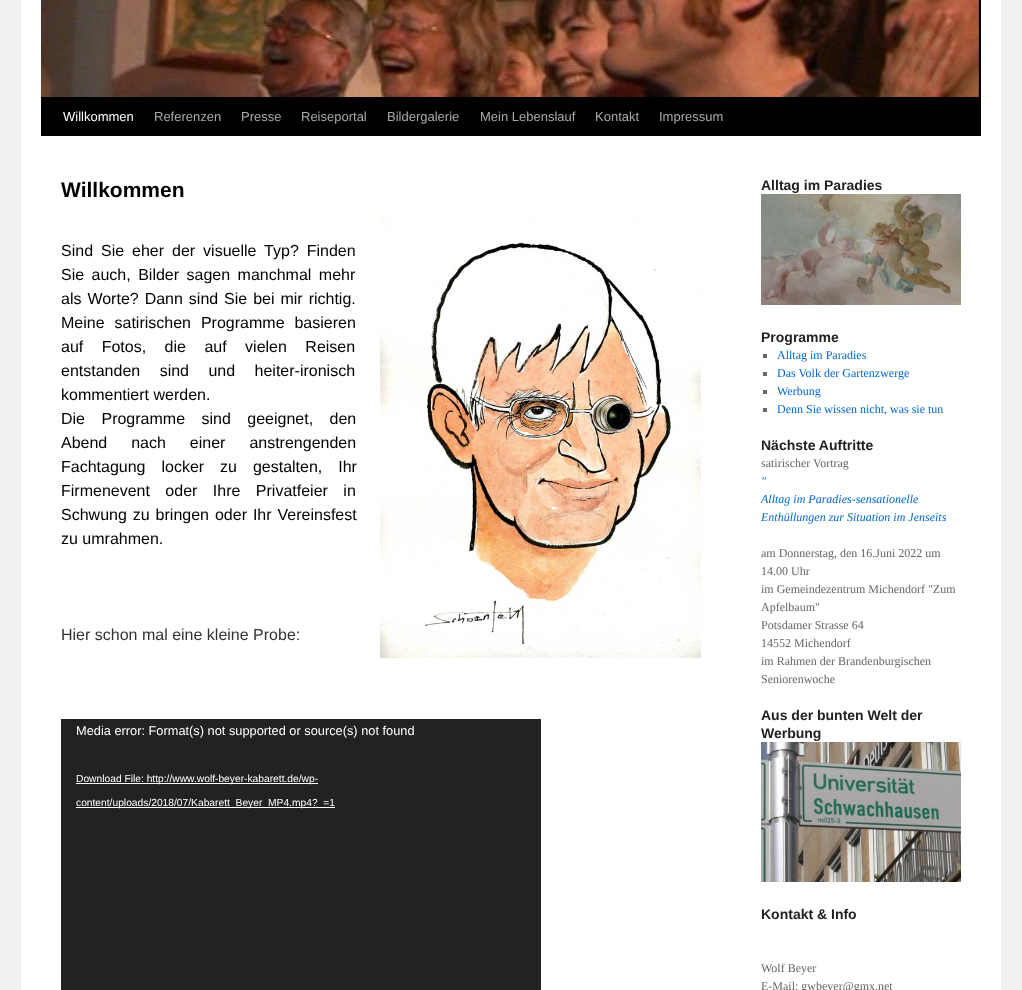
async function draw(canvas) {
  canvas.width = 1022;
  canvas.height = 990;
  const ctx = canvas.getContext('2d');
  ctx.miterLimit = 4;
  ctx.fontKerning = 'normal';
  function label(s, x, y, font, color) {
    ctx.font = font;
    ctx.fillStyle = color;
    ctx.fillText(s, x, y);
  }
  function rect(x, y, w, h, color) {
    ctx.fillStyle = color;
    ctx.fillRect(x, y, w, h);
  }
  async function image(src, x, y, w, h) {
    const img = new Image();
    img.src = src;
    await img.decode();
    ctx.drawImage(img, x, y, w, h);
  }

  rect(0, 0, 1022, 990, '#f1f1f1');
  rect(21, 0, 980, 990, '#fff');
  rect(41, 97, 940, 39, '#000');
  await image('assets/img1.png', 41, 0, 940, 97);
  label('Willkommen', 63, 121, '13px Liberation Sans', '#fff');
  label('Referenzen', 154, 121, '13px Liberation Sans', '#aaa');
  label('Presse', 241, 121, '13px Liberation Sans', '#aaa');
  label('Reiseportal', 301, 121, '13px Liberation Sans', '#aaa');
  label('Bildergalerie', 387, 121, '13px Liberation Sans', '#aaa');
  label('Mein Lebenslauf', 480, 121, '13px Liberation Sans', '#aaa');
  label('Kontakt', 595, 121, '13px Liberation Sans', '#aaa');
  label('Impressum', 659, 121, '13px Liberation Sans', '#aaa');
  label('Willkommen', 61, 197, 'bold 21px Liberation Sans', '#000');
  ctx.wordSpacing = '3.5px';
  label('Sind Sie eher der visuelle Typ? Finden', 61, 256, '16px Liberation Sans', '#000');
  ctx.wordSpacing = '3px';
  label('Sie auch, Bilder sagen manchmal mehr', 61, 280, '16px Liberation Sans', '#000');
  ctx.wordSpacing = '1.5px';
  label('als Worte? Dann sind Sie bei mir richtig.', 61, 304, '16px Liberation Sans', '#000');
  ctx.wordSpacing = '5.5px';
  label('Meine satirischen Programme basieren', 61, 328, '16px Liberation Sans', '#000');
  ctx.wordSpacing = '14px';
  label('auf Fotos, die auf vielen Reisen', 61, 352, '16px Liberation Sans', '#000');
  ctx.wordSpacing = '15px';
  label('entstanden sind und heiter-ironisch', 61, 376, '16px Liberation Sans', '#000');
  ctx.wordSpacing = '0px';
  label('kommentiert werden.', 61, 400, '16px Liberation Sans', '#000');
  ctx.wordSpacing = '12px';
  label('Die Programme sind geeignet, den', 61, 424, '16px Liberation Sans', '#000');
  ctx.wordSpacing = '19.5px';
  label('Abend nach einer anstrengenden', 61, 448, '16px Liberation Sans', '#000');
  ctx.wordSpacing = '11.5px';
  label('Fachtagung locker zu gestalten, Ihr', 61, 472, '16px Liberation Sans', '#000');
  ctx.wordSpacing = '11px';
  label('Firmenevent oder Ihre Privatfeier in', 61, 496, '16px Liberation Sans', '#000');
  ctx.wordSpacing = '1.5px';
  label('Schwung zu bringen oder Ihr Vereinsfest', 61, 520, '16px Liberation Sans', '#000');
  ctx.wordSpacing = '0px';
  label('zu umrahmen.', 61, 544, '16px Liberation Sans', '#000');
  await image('assets/img2.png', 380, 219, 321, 439);
  label('Hier schon mal eine kleine Probe:', 61, 640, '16px Liberation Sans', '#333');
  rect(61, 719, 480, 271, '#222');
  label('Media error: Format(s) not supported or source(s) not found', 76, 735, '12.8px Liberation Sans', '#fff');
  rect(76, 783, 242, 1, '#fff');
  label('Download File: http://www.wolf-beyer-kabarett.de/wp-', 76, 782, '10.25px Liberation Sans', '#fff');
  rect(76, 807, 259, 1, '#fff');
  label('content/uploads/2018/07/Kabarett_Beyer_MP4.mp4?_=1', 76, 806, '10.25px Liberation Sans', '#fff');
  label('Alltag im Paradies', 761, 190, 'bold 14px Liberation Sans', '#222');
  await image('assets/img3.png', 761, 194, 200, 111);
  label('Programme', 761, 342, 'bold 14px Liberation Sans', '#222');
  rect(763, 354, 4, 4, '#666');
  label('Alltag im Paradies', 777, 359, '12px Liberation Serif', '#06c');
  rect(763, 372, 4, 4, '#666');
  label('Das Volk der Gartenzwerge', 777, 377, '12px Liberation Serif', '#06c');
  rect(763, 390, 4, 4, '#666');
  label('Werbung', 777, 395, '12px Liberation Serif', '#06c');
  rect(763, 408, 4, 4, '#666');
  label('Denn Sie wissen nicht, was sie tun', 777, 413, '12px Liberation Serif', '#06c');
  label('Nächste Auftritte', 761, 450, 'bold 14px Liberation Sans', '#222');
  label('satirischer Vortrag', 761, 467, '12px Liberation Serif', '#666');
  label('"', 761, 485, 'italic 12px Liberation Serif', '#06c');
  label('Alltag im Paradies-sensationelle', 761, 503, 'italic 12px Liberation Serif', '#06c');
  label('Enthüllungen zur Situation im Jenseits', 761, 521, 'italic 12px Liberation Serif', '#06c');
  label('am Donnerstag, den 16.Juni 2022 um', 761, 557, '12px Liberation Serif', '#666');
  label('14.00 Uhr', 761, 575, '12px Liberation Serif', '#666');
  label('im Gemeindezentrum Michendorf "Zum', 761, 593, '12px Liberation Serif', '#666');
  label('Apfelbaum"', 761, 611, '12px Liberation Serif', '#666');
  label('Potsdamer Strasse 64', 761, 629, '12px Liberation Serif', '#666');
  label('14552 Michendorf', 761, 647, '12px Liberation Serif', '#666');
  label('im Rahmen der Brandenburgischen', 761, 665, '12px Liberation Serif', '#666');
  label('Seniorenwoche', 761, 683, '12px Liberation Serif', '#666');
  label('Aus der bunten Welt der', 761, 720, 'bold 14px Liberation Sans', '#222');
  label('Werbung', 761, 738, 'bold 14px Liberation Sans', '#222');
  await image('assets/img4.png', 761, 742, 200, 140);
  label('Kontakt & Info', 761, 919, 'bold 14px Liberation Sans', '#222');
  label('Wolf Beyer', 761, 972, '12px Liberation Serif', '#666');
  label('E-Mail: gwbeyer@gmx.net', 761, 990, '12px Liberation Serif', '#666');
}

draw(document.querySelector('canvas'));
